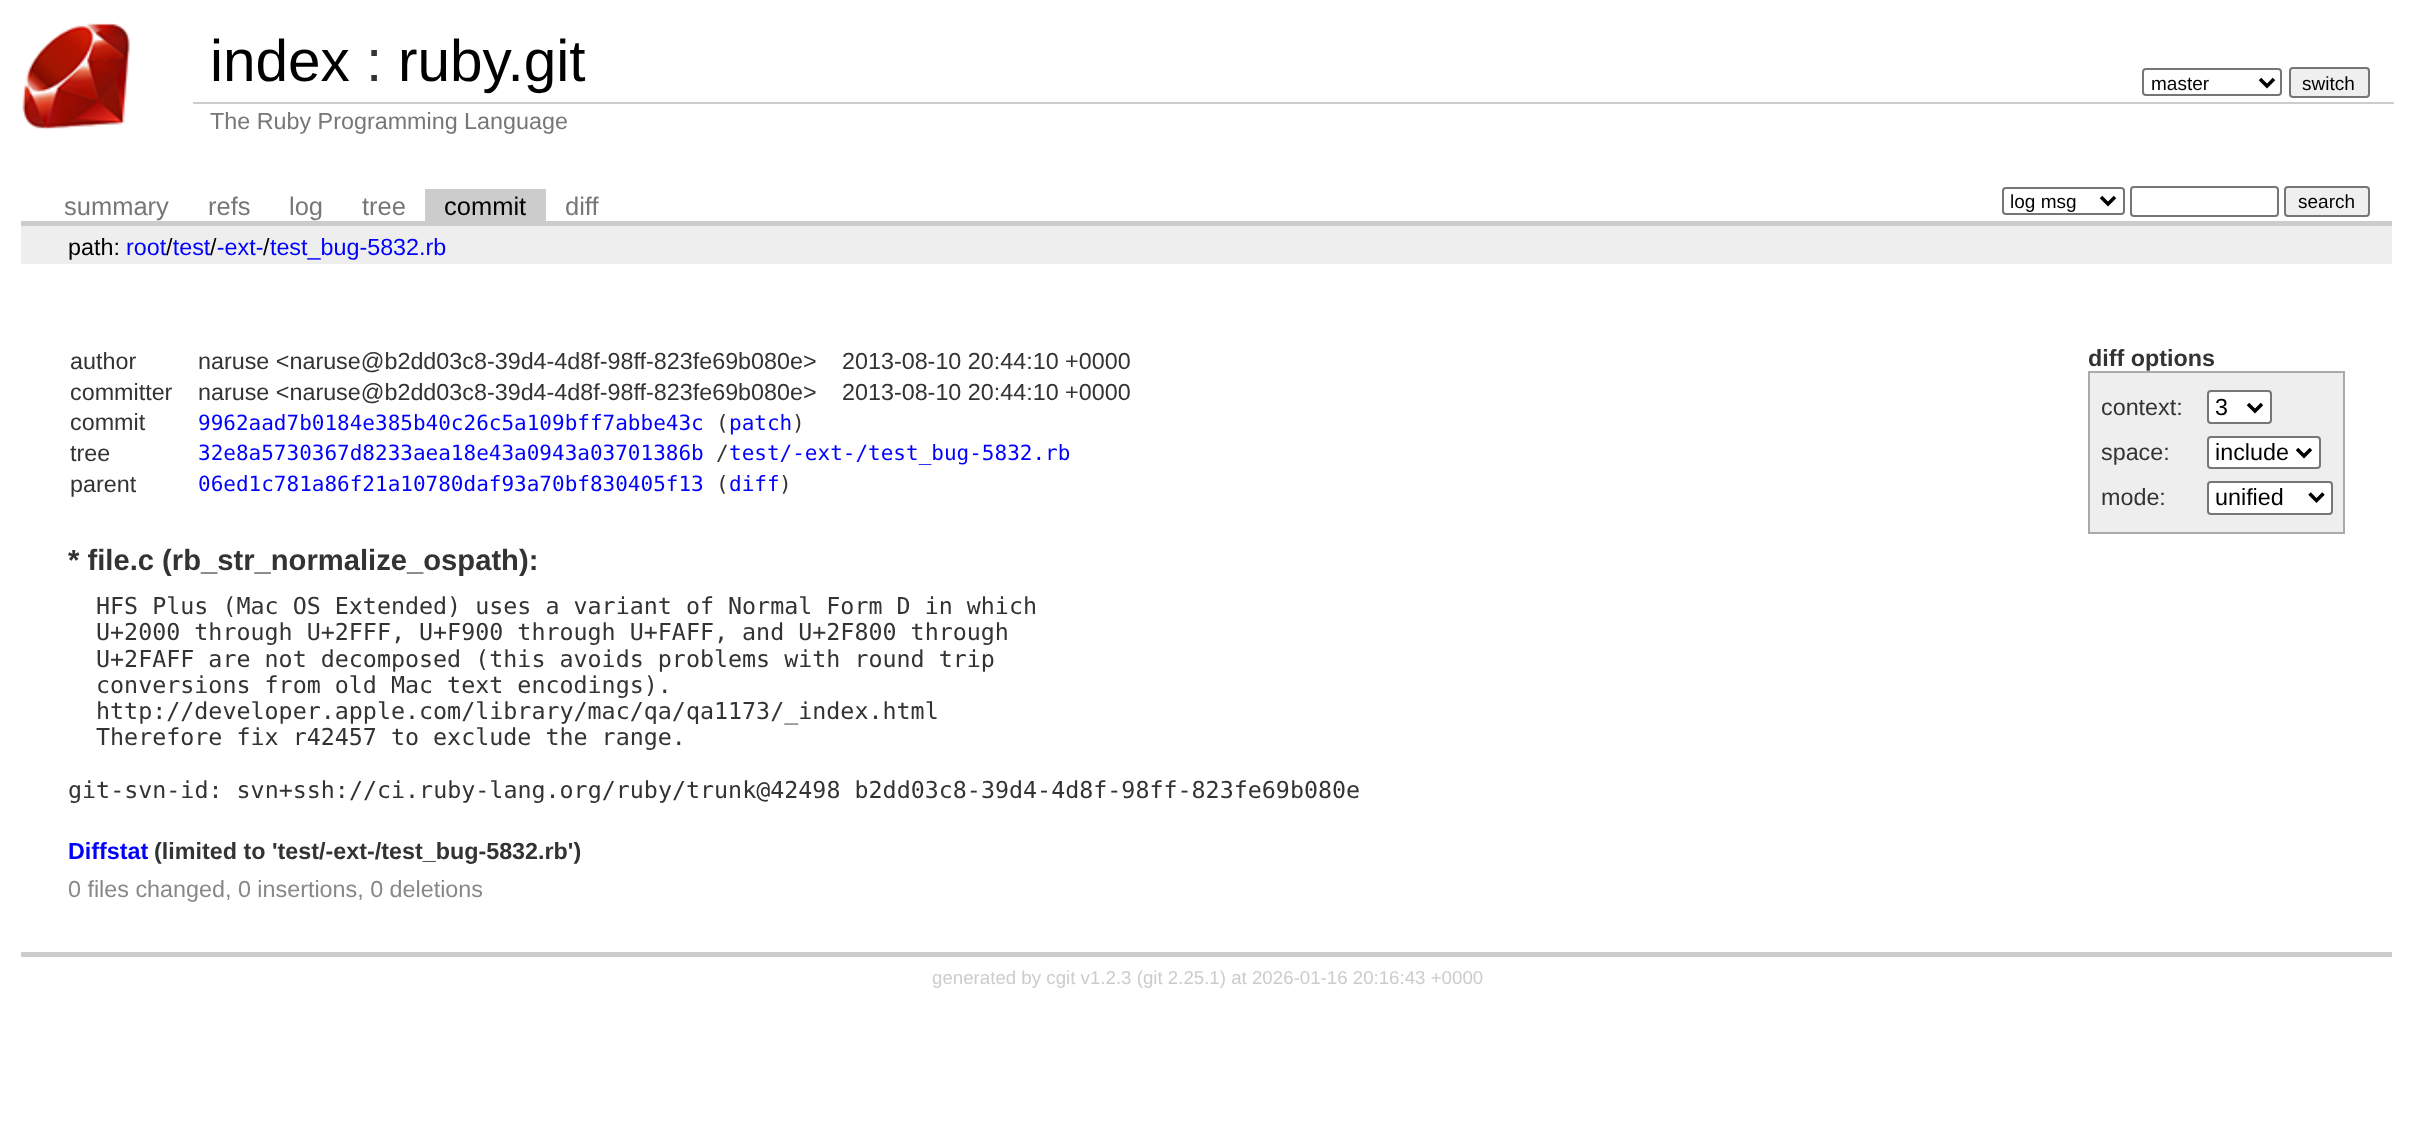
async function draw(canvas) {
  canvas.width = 2412;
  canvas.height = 1136;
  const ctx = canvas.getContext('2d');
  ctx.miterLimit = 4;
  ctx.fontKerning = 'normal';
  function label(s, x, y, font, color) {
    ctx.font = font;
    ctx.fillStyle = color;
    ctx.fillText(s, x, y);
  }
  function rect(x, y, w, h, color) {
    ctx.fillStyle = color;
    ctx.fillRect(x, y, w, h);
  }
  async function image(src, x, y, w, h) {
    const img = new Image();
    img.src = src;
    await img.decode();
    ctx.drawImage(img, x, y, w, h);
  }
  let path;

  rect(0, 0, 2412, 1136, '#fff');
  await image('assets/img1.png', 22, 22, 108, 108);
  label('index', 210, 81, '58.5px Liberation Sans', '#000');
  label(':', 366, 81, '58.5px Liberation Sans', '#333');
  label('ruby.git', 398, 81, '58.5px Liberation Sans', '#000');
  ctx.beginPath();
  ctx.roundRect(2143, 69, 138, 26, 3);
  ctx.strokeStyle = '#767676';
  ctx.lineWidth = 2;
  ctx.stroke();
  path = new Path2D('M2260 79L2267 86L2274 79');
  ctx.strokeStyle = '#000';
  ctx.lineWidth = 3.5;
  ctx.stroke(path);
  label('master', 2151, 90, '19px Liberation Sans', '#000');
  ctx.fillStyle = '#efefef';
  ctx.beginPath();
  ctx.roundRect(2290, 68, 79, 29, 3);
  ctx.fill();
  ctx.strokeStyle = '#767676';
  ctx.lineWidth = 2;
  ctx.stroke();
  label('switch', 2302, 90, '19px Liberation Sans', '#000');
  rect(193, 102, 2201, 2, '#ccc');
  label('The Ruby Programming Language', 210, 129, '23.33px Liberation Sans', '#777');
  rect(21, 221, 2371, 5, '#ccc');
  label('summary', 64, 215, '25.5px Liberation Sans', '#777');
  label('refs', 208, 215, '25.5px Liberation Sans', '#777');
  label('log', 289, 215, '25.5px Liberation Sans', '#777');
  label('tree', 362, 215, '25.5px Liberation Sans', '#777');
  rect(425, 189, 121, 32, '#ccc');
  label('commit', 444, 215, '25.5px Liberation Sans', '#000');
  label('diff', 565, 215, '25.5px Liberation Sans', '#777');
  ctx.beginPath();
  ctx.roundRect(2003, 188, 121, 26, 3);
  ctx.stroke();
  path = new Path2D('M2101 197L2108 204L2115 197');
  ctx.strokeStyle = '#000';
  ctx.lineWidth = 3.5;
  ctx.stroke(path);
  label('log msg', 2010, 208, '19px Liberation Sans', '#000');
  ctx.beginPath();
  ctx.roundRect(2131, 187, 147, 29, 3);
  ctx.strokeStyle = '#767676';
  ctx.lineWidth = 2;
  ctx.stroke();
  ctx.fillStyle = '#efefef';
  ctx.beginPath();
  ctx.roundRect(2285, 187, 84, 29, 3);
  ctx.fill();
  ctx.stroke();
  label('search', 2298, 208, '19px Liberation Sans', '#000');
  rect(21, 226, 2371, 38, '#eee');
  label('path:', 68, 255, '23.33px Liberation Sans', '#000');
  label('root test -ext- test_bug-5832.rb', 126, 255, '23.33px Liberation Sans', '#00f');
  label('/', 166, 255, '23.33px Liberation Sans', '#000');
  label('/', 210, 255, '23.33px Liberation Sans', '#000');
  label('/', 263, 255, '23.33px Liberation Sans', '#000');
  rect(21, 952, 2371, 5, '#ccc');
  label('author', 70, 369, '23.33px Liberation Sans', '#333');
  label('naruse <naruse@b2dd03c8-39d4-4d8f-98ff-823fe69b080e>', 198, 369, '23.33px Liberation Sans', '#333');
  label('2013-08-10 20:44:10 +0000', 842, 369, '23.33px Liberation Sans', '#333');
  label('committer', 70, 400, '23.33px Liberation Sans', '#333');
  label('naruse <naruse@b2dd03c8-39d4-4d8f-98ff-823fe69b080e>', 198, 400, '23.33px Liberation Sans', '#333');
  label('2013-08-10 20:44:10 +0000', 842, 400, '23.33px Liberation Sans', '#333');
  label('commit', 70, 430, '23.33px Liberation Sans', '#333');
  label('9962aad7b0184e385b40c26c5a109bff7abbe43c', 198, 430, '21px DejaVu Sans Mono', '#00f');
  label('(', 716, 430, '21px DejaVu Sans Mono', '#333');
  label('patch', 729, 430, '21px DejaVu Sans Mono', '#00f');
  label(')', 792, 430, '21px DejaVu Sans Mono', '#333');
  label('tree', 70, 461, '23.33px Liberation Sans', '#333');
  label('32e8a5730367d8233aea18e43a0943a03701386b', 198, 460, '21px DejaVu Sans Mono', '#00f');
  label('/', 716, 460, '21px DejaVu Sans Mono', '#333');
  label('test/-ext-/test_bug-5832.rb', 729, 460, '21px DejaVu Sans Mono', '#00f');
  label('parent', 70, 492, '23.33px Liberation Sans', '#333');
  label('06ed1c781a86f21a10780daf93a70bf830405f13', 198, 491, '21px DejaVu Sans Mono', '#00f');
  label('(', 716, 491, '21px DejaVu Sans Mono', '#333');
  label('diff', 729, 491, '21px DejaVu Sans Mono', '#00f');
  label(')', 779, 491, '21px DejaVu Sans Mono', '#333');
  label('diff options', 2088, 366, 'bold 23.33px Liberation Sans', '#333');
  rect(2090, 373, 253, 159, '#eee');
  rect(2088, 371, 257, 2, '#aaa');
  rect(2343, 371, 2, 163, '#aaa');
  rect(2088, 532, 257, 2, '#aaa');
  rect(2088, 371, 2, 163, '#aaa');
  label('context:', 2101, 415, '23.33px Liberation Sans', '#333');
  ctx.fillStyle = '#fff';
  ctx.beginPath();
  ctx.roundRect(2208, 391, 63, 32, 3);
  ctx.fill();
  ctx.stroke();
  path = new Path2D('M2248 404L2255 411L2262 404');
  ctx.strokeStyle = '#000';
  ctx.lineWidth = 3.5;
  ctx.stroke(path);
  label('3', 2215, 415, '23.33px Liberation Sans', '#000');
  label('space:', 2101, 460, '23.33px Liberation Sans', '#333');
  ctx.fillStyle = '#fff';
  ctx.beginPath();
  ctx.roundRect(2208, 437, 112, 31, 3);
  ctx.fill();
  ctx.strokeStyle = '#767676';
  ctx.lineWidth = 2;
  ctx.stroke();
  path = new Path2D('M2297 449L2304 456L2311 449');
  ctx.strokeStyle = '#000';
  ctx.lineWidth = 3.5;
  ctx.stroke(path);
  label('include', 2215, 460, '23.33px Liberation Sans', '#000');
  label('mode:', 2101, 505, '23.33px Liberation Sans', '#333');
  ctx.fillStyle = '#fff';
  ctx.beginPath();
  ctx.roundRect(2208, 482, 124, 32, 3);
  ctx.fill();
  ctx.strokeStyle = '#767676';
  ctx.lineWidth = 2;
  ctx.stroke();
  path = new Path2D('M2309.5 493.5L2316.5 500.5L2323.5 493.5');
  ctx.strokeStyle = '#000';
  ctx.lineWidth = 3.5;
  ctx.stroke(path);
  label('unified', 2215, 505, '23.33px Liberation Sans', '#000');
  label('* file.c (rb_str_normalize_ospath):', 68, 570, 'bold 29.2px Liberation Sans', '#333');
  label('HFS Plus (Mac OS Extended) uses a variant of Normal Form D in which', 96, 614, '23.33px DejaVu Sans Mono', '#333');
  label('U+2000 through U+2FFF, U+F900 through U+FAFF, and U+2F800 through', 96, 640, '23.33px DejaVu Sans Mono', '#333');
  label('U+2FAFF are not decomposed (this avoids problems with round trip', 96, 667, '23.33px DejaVu Sans Mono', '#333');
  label('conversions from old Mac text encodings).', 96, 693, '23.33px DejaVu Sans Mono', '#333');
  label('http://developer.apple.com/library/mac/qa/qa1173/_index.html', 96, 719, '23.33px DejaVu Sans Mono', '#333');
  label('Therefore fix r42457 to exclude the range.', 96, 745, '23.33px DejaVu Sans Mono', '#333');
  label('git-svn-id: svn+ssh://ci.ruby-lang.org/ruby/trunk@42498 b2dd03c8-39d4-4d8f-98ff-823fe69b080e', 68, 798, '23.33px DejaVu Sans Mono', '#333');
  label('Diffstat', 68, 859, 'bold 23.33px Liberation Sans', '#00f');
  label('(limited to \'test/-ext-/test_bug-5832.rb\')', 154, 859, 'bold 23.33px Liberation Sans', '#333');
  label('0 files changed, 0 insertions, 0 deletions', 68, 897, '23.33px Liberation Sans', '#888');
  label('generated by cgit v1.2.3 (git 2.25.1) at 2026-01-16 20:16:43 +0000', 932, 984, '18.7px Liberation Sans', '#ccc');
}

draw(document.querySelector('canvas'));
